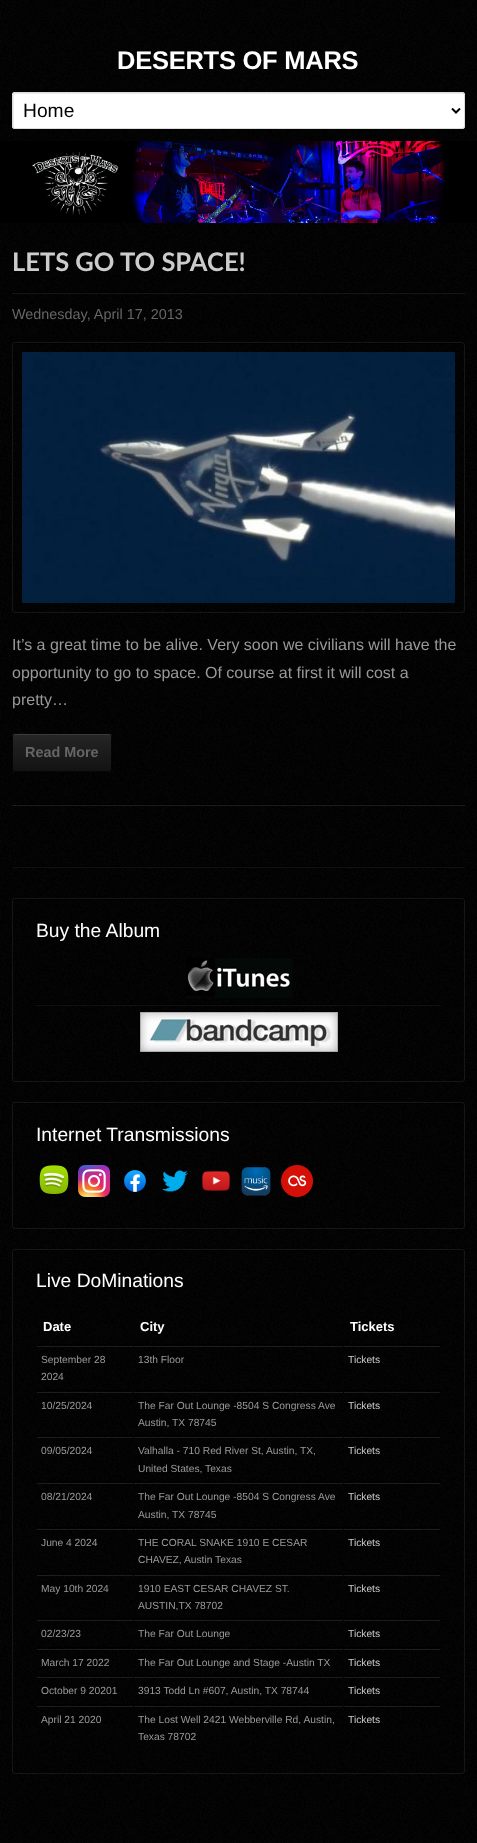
async function draw(canvas) {
  canvas.width = 477;
  canvas.height = 1843;
  const ctx = canvas.getContext('2d');
  ctx.miterLimit = 4;
  ctx.fontKerning = 'normal';
  function label(s, x, y, font, color) {
    ctx.font = font;
    ctx.fillStyle = color;
    ctx.fillText(s, x, y);
  }
  function rect(x, y, w, h, color) {
    ctx.fillStyle = color;
    ctx.fillRect(x, y, w, h);
  }
  function roundedRect(x, y, w, h, r, color) {
    ctx.fillStyle = color;
    ctx.beginPath();
    ctx.roundRect(x, y, w, h, r);
    ctx.fill();
  }
  async function image(src, x, y, w, h) {
    const img = new Image();
    img.src = src;
    await img.decode();
    ctx.drawImage(img, x, y, w, h);
  }
  let gradient, path;

  rect(0, 0, 477, 1843, '#000');
  await image('assets/img1.png', 0, 0, 477, 1843);
  ctx.letterSpacing = '-0.25px';
  label('DESERTS OF MARS', 117, 69, 'bold 25.5px Liberation Sans', '#fff');
  roundedRect(12, 92, 453, 37, 3, '#fff');
  ctx.fillStyle = '#ebebeb';
  path = new Path2D('M16 94H464C464 94 463 93 462 93H15C14 93 13 94 13 95V126C13 127 14 128 14 128V101C14 100 13 94 16 94Z');
  ctx.fill(path);
  ctx.beginPath();
  ctx.roundRect(12.5, 92.5, 452, 36, 2.5);
  ctx.strokeStyle = '#ddd';
  ctx.stroke();
  path = new Path2D('M452 108.5L456 112.5L460 108.5');
  ctx.strokeStyle = '#000';
  ctx.lineWidth = 2;
  ctx.stroke(path);
  ctx.letterSpacing = '0px';
  label('Home', 23, 117, '19.25px Liberation Sans', '#000');
  rect(0, 141, 477, 82, '#000');
  await image('assets/img2.png', 32, 141, 414, 82);
  rect(12, 866, 453, 1, '#000000e6');
  rect(12, 804, 453, 1, '#000');
  rect(12, 292, 453, 1, '#000000cc');
  label('LETS GO TO SPACE!', 12, 271, 'bold 25.5px Lato', '#ccc');
  rect(12, 293, 453, 1, '#ffffff14');
  label('Wednesday, April 17, 2013', 12, 319, '14.4px Liberation Sans', '#666');
  ctx.fillStyle = '#000000e6';
  path = new Path2D('M15 344H462C463 344 464 345 464 346C464 345 464 343 462 343H15C13 343 13 345 13 346C13 345 14 344 15 344Z');
  ctx.fill(path);
  ctx.beginPath();
  ctx.roundRect(12.5, 342.5, 452, 270, 2.5);
  ctx.strokeStyle = '#ffffff14';
  ctx.lineWidth = 1;
  ctx.stroke();
  await image('assets/img3.png', 22, 352, 433, 251);
  label('It’s a great time to be alive. Very soon we civilians will have the', 12, 650, '16px Liberation Sans', '#999');
  label('opportunity to go to space. Of course at first it will cost a', 12, 678, '16px Liberation Sans', '#999');
  label('pretty…', 12, 705, '16px Liberation Sans', '#999');
  roundedRect(12, 733, 100, 39, 3, '#252525');
  ctx.save();
  ctx.beginPath();
  ctx.roundRect(12, 733, 100, 39, 3);
  ctx.clip();
  gradient = ctx.createLinearGradient(62, 697, 62, 734);
  gradient.addColorStop(0, '#00000000');
  gradient.addColorStop(1, '#00000080');
  ctx.fillStyle = gradient;
  ctx.fillRect(12, 733, 100, 1);
  ctx.restore();
  gradient = ctx.createLinearGradient(62, 734, 62, 771);
  gradient.addColorStop(0, '#00000000');
  gradient.addColorStop(1, '#00000080');
  ctx.fillStyle = gradient;
  ctx.fillRect(12, 739, 100, 32);
  ctx.fillStyle = '#ffffff1a';
  path = new Path2D('M15 735H109C110 735 111 736 111 737C111 736 111 734 109 734H31C29 734 13 730 13 737C13 736 14 735 15 735Z');
  ctx.fill(path);
  ctx.beginPath();
  ctx.roundRect(12.5, 733.5, 99, 38, 2.5);
  ctx.strokeStyle = '#000000cc';
  ctx.stroke();
  label('Read More', 25, 757, 'bold 14.4px Liberation Sans', '#666');
  rect(12, 805, 453, 1, '#ffffff1a');
  rect(12, 867, 453, 1, '#ffffff0f');
  ctx.fillStyle = '#000000e6';
  path = new Path2D('M15 900H462C463 900 464 901 464 902C464 901 464 899 462 899H15C13 899 13 901 13 902C13 901 14 900 15 900Z');
  ctx.fill(path);
  ctx.beginPath();
  ctx.roundRect(12.5, 898.5, 452, 183, 2.5);
  ctx.strokeStyle = '#ffffff14';
  ctx.stroke();
  label('Buy the Album', 36, 937, '19.25px Liberation Sans', '#fff');
  rect(36, 1004, 405, 1, '#000000e6');
  await image('assets/img4.png', 186, 958, 106, 40);
  rect(36, 1005, 405, 1, '#ffffff0f');
  await image('assets/img5.png', 140, 1012, 198, 40);
  ctx.fillStyle = '#000000e6';
  path = new Path2D('M15 1104H462C463 1104 464 1105 464 1106C464 1105 464 1103 462 1103H15C13 1103 13 1105 13 1106C13 1105 14 1104 15 1104Z');
  ctx.fill(path);
  ctx.beginPath();
  ctx.roundRect(12.5, 1102.5, 452, 126, 2.5);
  ctx.stroke();
  label('Internet Transmissions', 36, 1141, '19.25px Liberation Sans', '#fff');
  await image('assets/img6.png', 39, 1165, 30, 29);
  await image('assets/img7.png', 78, 1165, 32, 32);
  await image('assets/img8.png', 124, 1170, 22, 22);
  await image('assets/img9.png', 162, 1170, 26, 22);
  await image('assets/img10.png', 202, 1171, 28, 20);
  await image('assets/img11.png', 241, 1167, 30, 29);
  await image('assets/img12.png', 281, 1165, 32, 32);
  ctx.fillStyle = '#000000e6';
  path = new Path2D('M15 1251H462C463 1251 464 1252 464 1253C464 1252 464 1250 462 1250H15C13 1250 13 1252 13 1253C13 1252 14 1251 15 1251Z');
  ctx.fill(path);
  ctx.beginPath();
  ctx.roundRect(12.5, 1249.5, 452, 524, 2.5);
  ctx.stroke();
  label('Live DoMinations', 36, 1287, '19.25px Liberation Sans', '#fff');
  rect(37, 1344, 96, 1, '#000000cc');
  label('Date', 43, 1331, 'bold 13px Liberation Sans', '#fff');
  rect(134, 1344, 209, 1, '#000000cc');
  label('City', 140, 1331, 'bold 13px Liberation Sans', '#fff');
  rect(344, 1344, 96, 1, '#000000cc');
  label('Tickets', 350, 1331, 'bold 13px Liberation Sans', '#fff');
  rect(37, 1346, 96, 1, '#ffffff1a');
  rect(37, 1390, 96, 1, '#000000cc');
  label('September 28', 41, 1363, '10.25px Liberation Sans', '#999');
  label('2024', 41, 1380, '10.25px Liberation Sans', '#999');
  rect(134, 1346, 209, 1, '#ffffff1a');
  rect(134, 1390, 209, 1, '#000000cc');
  label('13th Floor', 138, 1363, '10.25px Liberation Sans', '#999');
  rect(344, 1346, 96, 1, '#ffffff1a');
  rect(344, 1390, 96, 1, '#000000cc');
  label('Tickets', 348, 1363, '10.25px Liberation Sans', '#ccc');
  rect(37, 1392, 96, 1, '#ffffff1a');
  rect(37, 1435, 96, 1, '#000000cc');
  label('10/25/2024', 41, 1409, '10.25px Liberation Sans', '#999');
  rect(134, 1392, 209, 1, '#ffffff1a');
  rect(134, 1435, 209, 1, '#000000cc');
  label('The Far Out Lounge -8504 S Congress Ave', 138, 1409, '10.25px Liberation Sans', '#999');
  label('Austin, TX 78745', 138, 1426, '10.25px Liberation Sans', '#999');
  rect(344, 1392, 96, 1, '#ffffff1a');
  rect(344, 1435, 96, 1, '#000000cc');
  label('Tickets', 348, 1409, '10.25px Liberation Sans', '#ccc');
  rect(37, 1437, 96, 1, '#ffffff1a');
  rect(37, 1481, 96, 1, '#000000cc');
  label('09/05/2024', 41, 1454, '10.25px Liberation Sans', '#999');
  rect(134, 1437, 209, 1, '#ffffff1a');
  rect(134, 1481, 209, 1, '#000000cc');
  label('Valhalla - 710 Red River St, Austin, TX,', 138, 1454, '10.25px Liberation Sans', '#999');
  label('United States, Texas', 138, 1472, '10.25px Liberation Sans', '#999');
  rect(344, 1437, 96, 1, '#ffffff1a');
  rect(344, 1481, 96, 1, '#000000cc');
  label('Tickets', 348, 1454, '10.25px Liberation Sans', '#ccc');
  rect(37, 1483, 96, 1, '#ffffff1a');
  rect(37, 1527, 96, 1, '#000000cc');
  label('08/21/2024', 41, 1500, '10.25px Liberation Sans', '#999');
  rect(134, 1483, 209, 1, '#ffffff1a');
  rect(134, 1527, 209, 1, '#000000cc');
  label('The Far Out Lounge -8504 S Congress Ave', 138, 1500, '10.25px Liberation Sans', '#999');
  label('Austin, TX 78745', 138, 1518, '10.25px Liberation Sans', '#999');
  rect(344, 1483, 96, 1, '#ffffff1a');
  rect(344, 1527, 96, 1, '#000000cc');
  label('Tickets', 348, 1500, '10.25px Liberation Sans', '#ccc');
  rect(37, 1529, 96, 1, '#ffffff1a');
  rect(37, 1573, 96, 1, '#000000cc');
  label('June 4 2024', 41, 1546, '10.25px Liberation Sans', '#999');
  rect(134, 1529, 209, 1, '#ffffff1a');
  rect(134, 1573, 209, 1, '#000000cc');
  label('THE CORAL SNAKE 1910 E CESAR', 138, 1546, '10.25px Liberation Sans', '#999');
  label('CHAVEZ, Austin Texas', 138, 1563, '10.25px Liberation Sans', '#999');
  rect(344, 1529, 96, 1, '#ffffff1a');
  rect(344, 1573, 96, 1, '#000000cc');
  label('Tickets', 348, 1546, '10.25px Liberation Sans', '#ccc');
  rect(37, 1575, 96, 1, '#ffffff1a');
  rect(37, 1618, 96, 1, '#000000cc');
  label('May 10th 2024', 41, 1592, '10.25px Liberation Sans', '#999');
  rect(134, 1575, 209, 1, '#ffffff1a');
  rect(134, 1618, 209, 1, '#000000cc');
  label('1910 EAST CESAR CHAVEZ ST.', 138, 1592, '10.25px Liberation Sans', '#999');
  label('AUSTIN,TX 78702', 138, 1609, '10.25px Liberation Sans', '#999');
  rect(344, 1575, 96, 1, '#ffffff1a');
  rect(344, 1618, 96, 1, '#000000cc');
  label('Tickets', 348, 1592, '10.25px Liberation Sans', '#ccc');
  rect(37, 1620, 96, 1, '#ffffff1a');
  rect(37, 1647, 96, 1, '#000000cc');
  label('02/23/23', 41, 1637, '10.25px Liberation Sans', '#999');
  rect(134, 1620, 209, 1, '#ffffff1a');
  rect(134, 1647, 209, 1, '#000000cc');
  label('The Far Out Lounge', 138, 1637, '10.25px Liberation Sans', '#999');
  rect(344, 1620, 96, 1, '#ffffff1a');
  rect(344, 1647, 96, 1, '#000000cc');
  label('Tickets', 348, 1637, '10.25px Liberation Sans', '#ccc');
  rect(37, 1649, 96, 1, '#ffffff1a');
  rect(37, 1675, 96, 1, '#000000cc');
  label('March 17 2022', 41, 1666, '10.25px Liberation Sans', '#999');
  rect(134, 1649, 209, 1, '#ffffff1a');
  rect(134, 1675, 209, 1, '#000000cc');
  label('The Far Out Lounge and Stage -Austin TX', 138, 1666, '10.25px Liberation Sans', '#999');
  rect(344, 1649, 96, 1, '#ffffff1a');
  rect(344, 1675, 96, 1, '#000000cc');
  label('Tickets', 348, 1666, '10.25px Liberation Sans', '#ccc');
  rect(37, 1677, 96, 1, '#ffffff1a');
  rect(37, 1704, 96, 1, '#000000cc');
  label('October 9 20201', 41, 1694, '10.25px Liberation Sans', '#999');
  rect(134, 1677, 209, 1, '#ffffff1a');
  rect(134, 1704, 209, 1, '#000000cc');
  label('3913 Todd Ln #607, Austin, TX 78744', 138, 1694, '10.25px Liberation Sans', '#999');
  rect(344, 1677, 96, 1, '#ffffff1a');
  rect(344, 1704, 96, 1, '#000000cc');
  label('Tickets', 348, 1694, '10.25px Liberation Sans', '#ccc');
  rect(37, 1706, 96, 1, '#ffffff1a');
  label('April 21 2020', 41, 1723, '10.25px Liberation Sans', '#999');
  rect(134, 1706, 209, 1, '#ffffff1a');
  label('The Lost Well 2421 Webberville Rd, Austin,', 138, 1723, '10.25px Liberation Sans', '#999');
  label('Texas 78702', 138, 1740, '10.25px Liberation Sans', '#999');
  rect(344, 1706, 96, 1, '#ffffff1a');
  label('Tickets', 348, 1723, '10.25px Liberation Sans', '#ccc');
}

draw(document.querySelector('canvas'));
